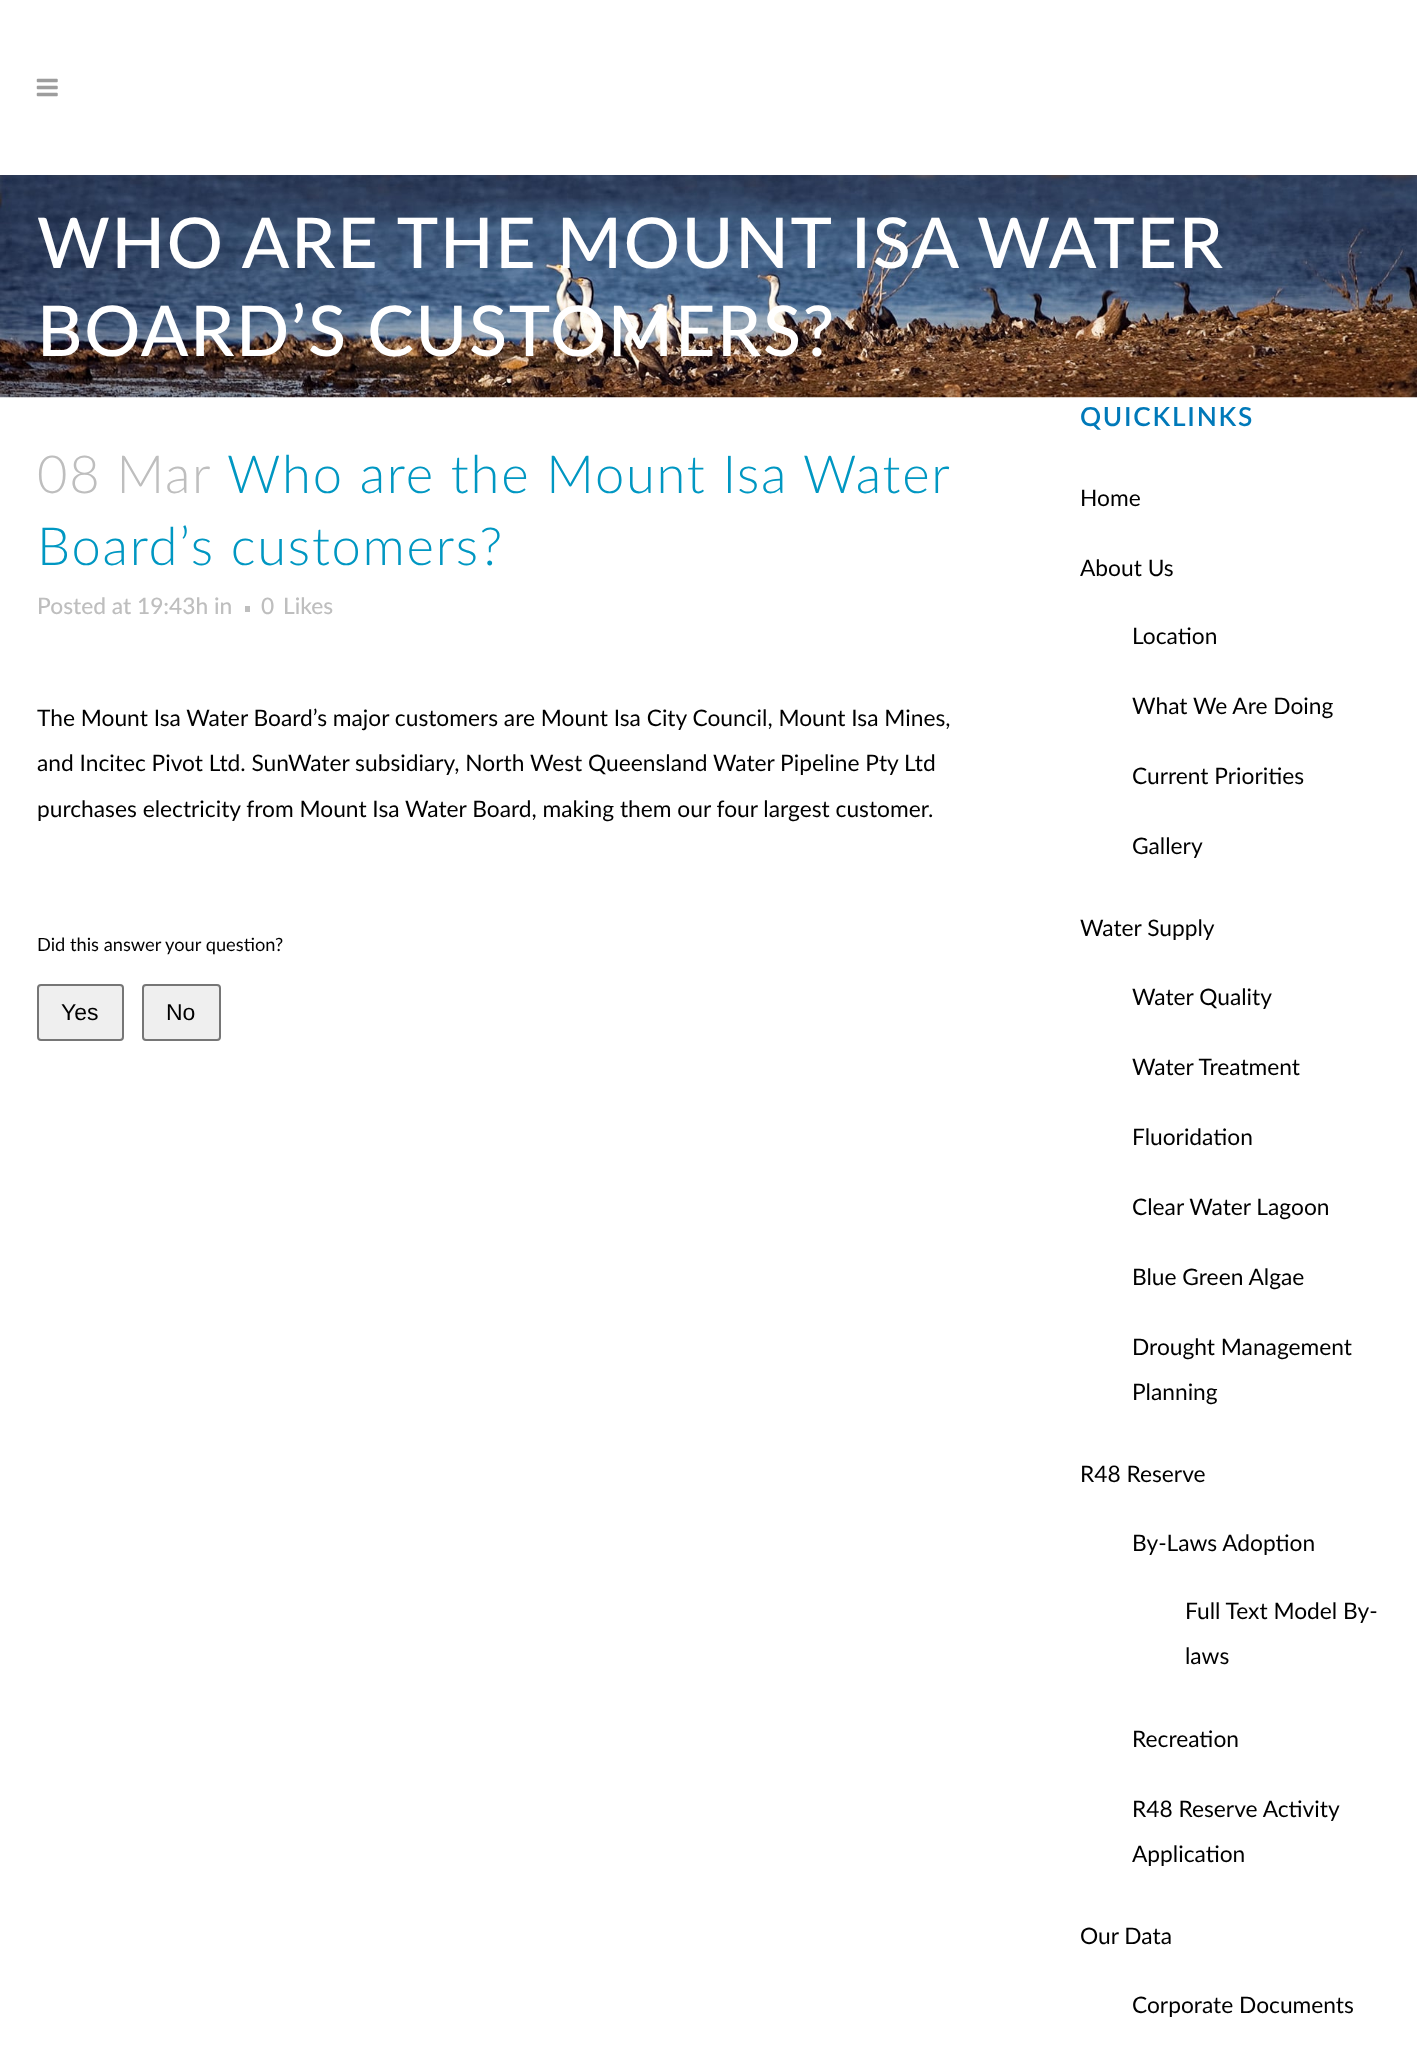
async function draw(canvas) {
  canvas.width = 1417;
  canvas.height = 2069;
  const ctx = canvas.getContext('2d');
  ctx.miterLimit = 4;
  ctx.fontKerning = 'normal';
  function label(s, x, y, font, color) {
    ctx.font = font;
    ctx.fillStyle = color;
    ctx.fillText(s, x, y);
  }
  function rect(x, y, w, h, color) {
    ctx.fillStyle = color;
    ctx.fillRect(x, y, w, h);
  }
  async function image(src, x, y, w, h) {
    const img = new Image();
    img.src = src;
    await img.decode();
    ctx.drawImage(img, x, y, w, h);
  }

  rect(0, 0, 1417, 2069, '#fff');
  await image('assets/img1.png', 36, 78, 22, 19);
  await image('assets/img2.png', 0, 175, 1417, 223);
  ctx.letterSpacing = '1.75px';
  label('WHO ARE THE MOUNT ISA WATER', 37, 268, '500 70px Lato', '#fff');
  label('BOARD’S CUSTOMERS?', 37, 356, '500 70px Lato', '#fff');
  ctx.wordSpacing = '-1px';
  label('08 Mar', 37, 493, '300 52.5px Lato', '#bebebe');
  ctx.wordSpacing = '0px';
  label('Who are the Mount Isa Water', 227, 493, '300 52.5px Lato', '#0097c2');
  label('Board’s customers?', 37, 565, '300 52.5px Lato', '#0097c2');
  ctx.letterSpacing = '0px';
  label('Posted at 19:43h in', 37, 614, '500 22.75px Lato', '#bebebe');
  rect(245, 606, 5, 6, '#bebebe');
  label('0', 261, 614, '500 22.75px Lato', '#bebebe');
  label('Likes', 283, 614, '500 22.75px Lato', '#bebebe');
  label('The Mount Isa Water Board’s major customers are Mount Isa City Council, Mount Isa Mines,', 37, 726, '22.75px Lato', '#000');
  label('and Incitec Pivot Ltd. SunWater subsidiary, North West Queensland Water Pipeline Pty Ltd', 37, 771, '22.75px Lato', '#000');
  label('purchases electricity from Mount Isa Water Board, making them our four largest customer.', 37, 817, '22.75px Lato', '#000');
  label('Did this answer your question?', 37, 951, '18.25px Lato', '#000');
  ctx.fillStyle = '#efefef';
  ctx.beginPath();
  ctx.roundRect(38, 985, 85, 55, 3);
  ctx.fill();
  ctx.strokeStyle = '#767676';
  ctx.lineWidth = 2;
  ctx.stroke();
  label('Yes', 61, 1020, '23px Liberation Sans', '#000');
  ctx.fillStyle = '#efefef';
  ctx.beginPath();
  ctx.roundRect(143, 985, 77, 55, 3);
  ctx.fill();
  ctx.stroke();
  label('No', 166, 1020, '23px Liberation Sans', '#000');
  ctx.letterSpacing = '1.75px';
  label('QUICKLINKS', 1080, 426, '600 26.25px Lato', '#0079b9');
  ctx.letterSpacing = '0px';
  label('Home', 1080, 506, '22.75px Lato', '#000');
  label('About Us', 1080, 576, '22.75px Lato', '#000');
  label('Location', 1132, 644, '22.75px Lato', '#000');
  label('What We Are Doing', 1132, 714, '22.75px Lato', '#000');
  label('Current Priorities', 1132, 784, '22.75px Lato', '#000');
  label('Gallery', 1132, 854, '22.75px Lato', '#000');
  label('Water Supply', 1080, 936, '22.75px Lato', '#000');
  label('Water Quality', 1132, 1005, '22.75px Lato', '#000');
  label('Water Treatment', 1132, 1075, '22.75px Lato', '#000');
  label('Fluoridation', 1132, 1145, '22.75px Lato', '#000');
  label('Clear Water Lagoon', 1132, 1215, '22.75px Lato', '#000');
  label('Blue Green Algae', 1132, 1285, '22.75px Lato', '#000');
  label('Drought Management', 1132, 1355, '22.75px Lato', '#000');
  label('Planning', 1132, 1400, '22.75px Lato', '#000');
  label('R48 Reserve', 1080, 1482, '22.75px Lato', '#000');
  label('By-Laws Adoption', 1132, 1551, '22.75px Lato', '#000');
  label('Full Text Model By-', 1185, 1619, '22.75px Lato', '#000');
  label('laws', 1185, 1664, '22.75px Lato', '#000');
  label('Recreation', 1132, 1747, '22.75px Lato', '#000');
  label('R48 Reserve Activity', 1132, 1817, '22.75px Lato', '#000');
  label('Application', 1132, 1862, '22.75px Lato', '#000');
  label('Our Data', 1080, 1944, '22.75px Lato', '#000');
  label('Corporate Documents', 1132, 2013, '22.75px Lato', '#000');
}

draw(document.querySelector('canvas'));
